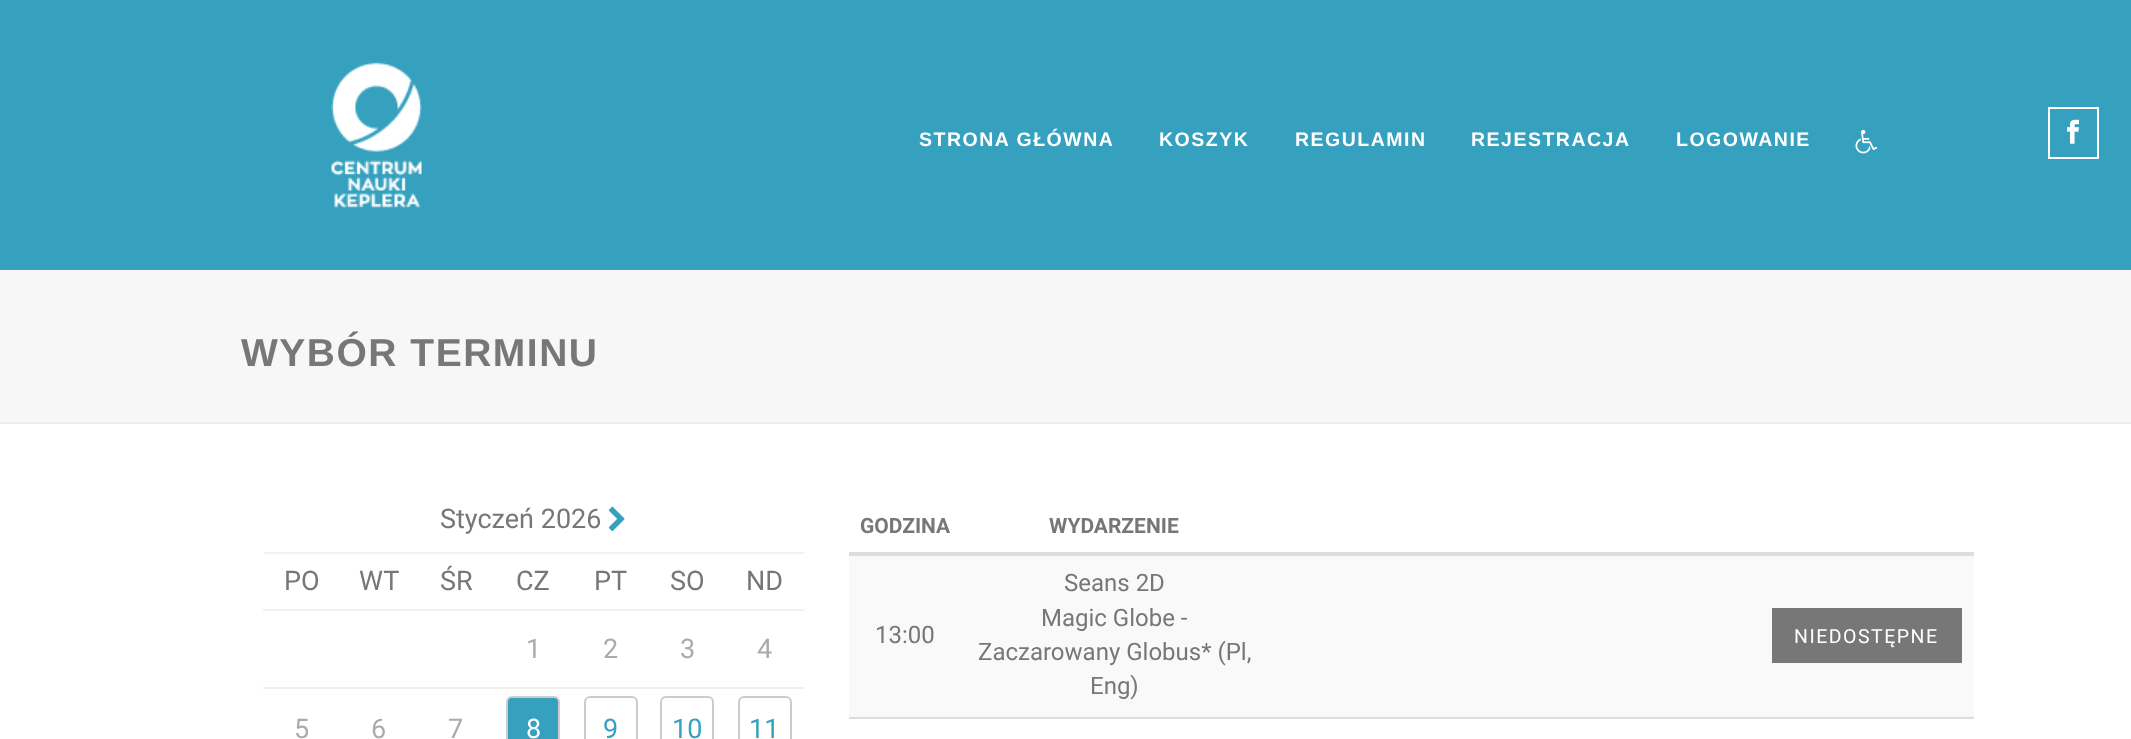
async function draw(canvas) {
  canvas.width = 2131;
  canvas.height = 739;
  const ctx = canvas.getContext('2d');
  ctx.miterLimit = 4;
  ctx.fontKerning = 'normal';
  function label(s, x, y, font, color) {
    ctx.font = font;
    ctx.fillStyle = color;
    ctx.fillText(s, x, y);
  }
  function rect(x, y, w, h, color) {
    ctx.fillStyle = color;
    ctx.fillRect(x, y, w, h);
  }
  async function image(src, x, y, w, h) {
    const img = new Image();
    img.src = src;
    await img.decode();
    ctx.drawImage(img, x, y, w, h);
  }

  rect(0, 0, 2131, 739, '#fff');
  rect(0, 270, 2131, 152, '#f7f7f7');
  rect(0, 422, 2131, 2, '#ededed');
  rect(0, 0, 2131, 270, '#35a1be');
  await image('assets/img1.png', 331, 62, 91, 146);
  ctx.letterSpacing = '1.5px';
  label('STRONA GŁÓWNA', 919, 146, 'bold 19.5px Arimo', '#fff');
  label('KOSZYK', 1159, 146, 'bold 19.5px Arimo', '#fff');
  label('REGULAMIN', 1295, 146, 'bold 19.5px Arimo', '#fff');
  label('REJESTRACJA', 1471, 146, 'bold 19.5px Arimo', '#fff');
  label('LOGOWANIE', 1676, 146, 'bold 19.5px Arimo', '#fff');
  await image('assets/img2.png', 1855, 129, 23, 25);
  ctx.strokeStyle = '#fff';
  ctx.lineWidth = 2;
  ctx.strokeRect(2049, 108, 49, 50);
  await image('assets/img3.png', 2067, 119, 12, 25);
  label('WYBÓR TERMINU', 241, 366, 'bold 39px Arimo', '#777');
  rect(264, 552, 540, 2, '#f1f2ec');
  ctx.letterSpacing = '0px';
  label('Styczeń 2026', 440, 528, '27px Roboto', '#777');
  await image('assets/img4.png', 608, 506, 17, 25);
  rect(263, 609, 541, 2, '#f1f2ec');
  label('PO', 284, 590, '27px Roboto', '#777');
  label('WT', 359, 590, '27px Roboto', '#777');
  label('ŚR', 440, 590, '27px Roboto', '#777');
  label('CZ', 516, 590, '27px Roboto', '#777');
  label('PT', 594, 590, '27px Roboto', '#777');
  label('SO', 670, 590, '27px Roboto', '#777');
  label('ND', 746, 590, '27px Roboto', '#777');
  rect(263, 687, 541, 2, '#f1f2ec');
  label('1', 526, 658, '27px Roboto', '#a8acad');
  label('2', 603, 658, '27px Roboto', '#a8acad');
  label('3', 680, 658, '27px Roboto', '#a8acad');
  label('4', 757, 658, '27px Roboto', '#a8acad');
  label('5', 294, 738, '27px Roboto', '#a8acad');
  label('6', 371, 738, '27px Roboto', '#a8acad');
  label('7', 448, 738, '27px Roboto', '#a8acad');
  ctx.fillStyle = '#35a1be';
  ctx.beginPath();
  ctx.roundRect(507, 697, 52, 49, 5);
  ctx.fill();
  ctx.strokeStyle = '#ccc';
  ctx.stroke();
  label('8', 526, 738, '27px Roboto', '#fff');
  ctx.beginPath();
  ctx.roundRect(585, 697, 52, 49, 5);
  ctx.stroke();
  label('9', 603, 738, '27px Roboto', '#35a1be');
  ctx.beginPath();
  ctx.roundRect(661, 697, 52, 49, 5);
  ctx.stroke();
  label('10', 672, 738, '27px Roboto', '#35a1be');
  ctx.beginPath();
  ctx.roundRect(739, 697, 52, 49, 5);
  ctx.stroke();
  label('11', 749, 738, '27px Roboto', '#35a1be');
  label('GODZINA', 860, 533, 'bold 21px Roboto', '#777');
  label('WYDARZENIE', 1049, 533, 'bold 21px Roboto', '#777');
  rect(849, 552, 1125, 3, '#ddd');
  rect(849, 556, 1125, 161, '#f9f9f9');
  label('13:00', 875, 643, '24px Roboto', '#777');
  label('Seans 2D', 1064, 591, '24px Roboto', '#777');
  label('Magic Globe -', 1041, 626, '24px Roboto', '#777');
  label('Zaczarowany Globus* (Pl,', 978, 660, '24px Roboto', '#777');
  label('Eng)', 1090, 694, '24px Roboto', '#777');
  rect(849, 555, 1125, 1, '#ddd');
  rect(1772, 608, 190, 55, '#777');
  ctx.letterSpacing = '1.5px';
  label('NIEDOSTĘPNE', 1794, 643, '19.5px Roboto', '#fff');
  rect(849, 717, 1125, 2, '#ddd');
}

draw(document.querySelector('canvas'));
